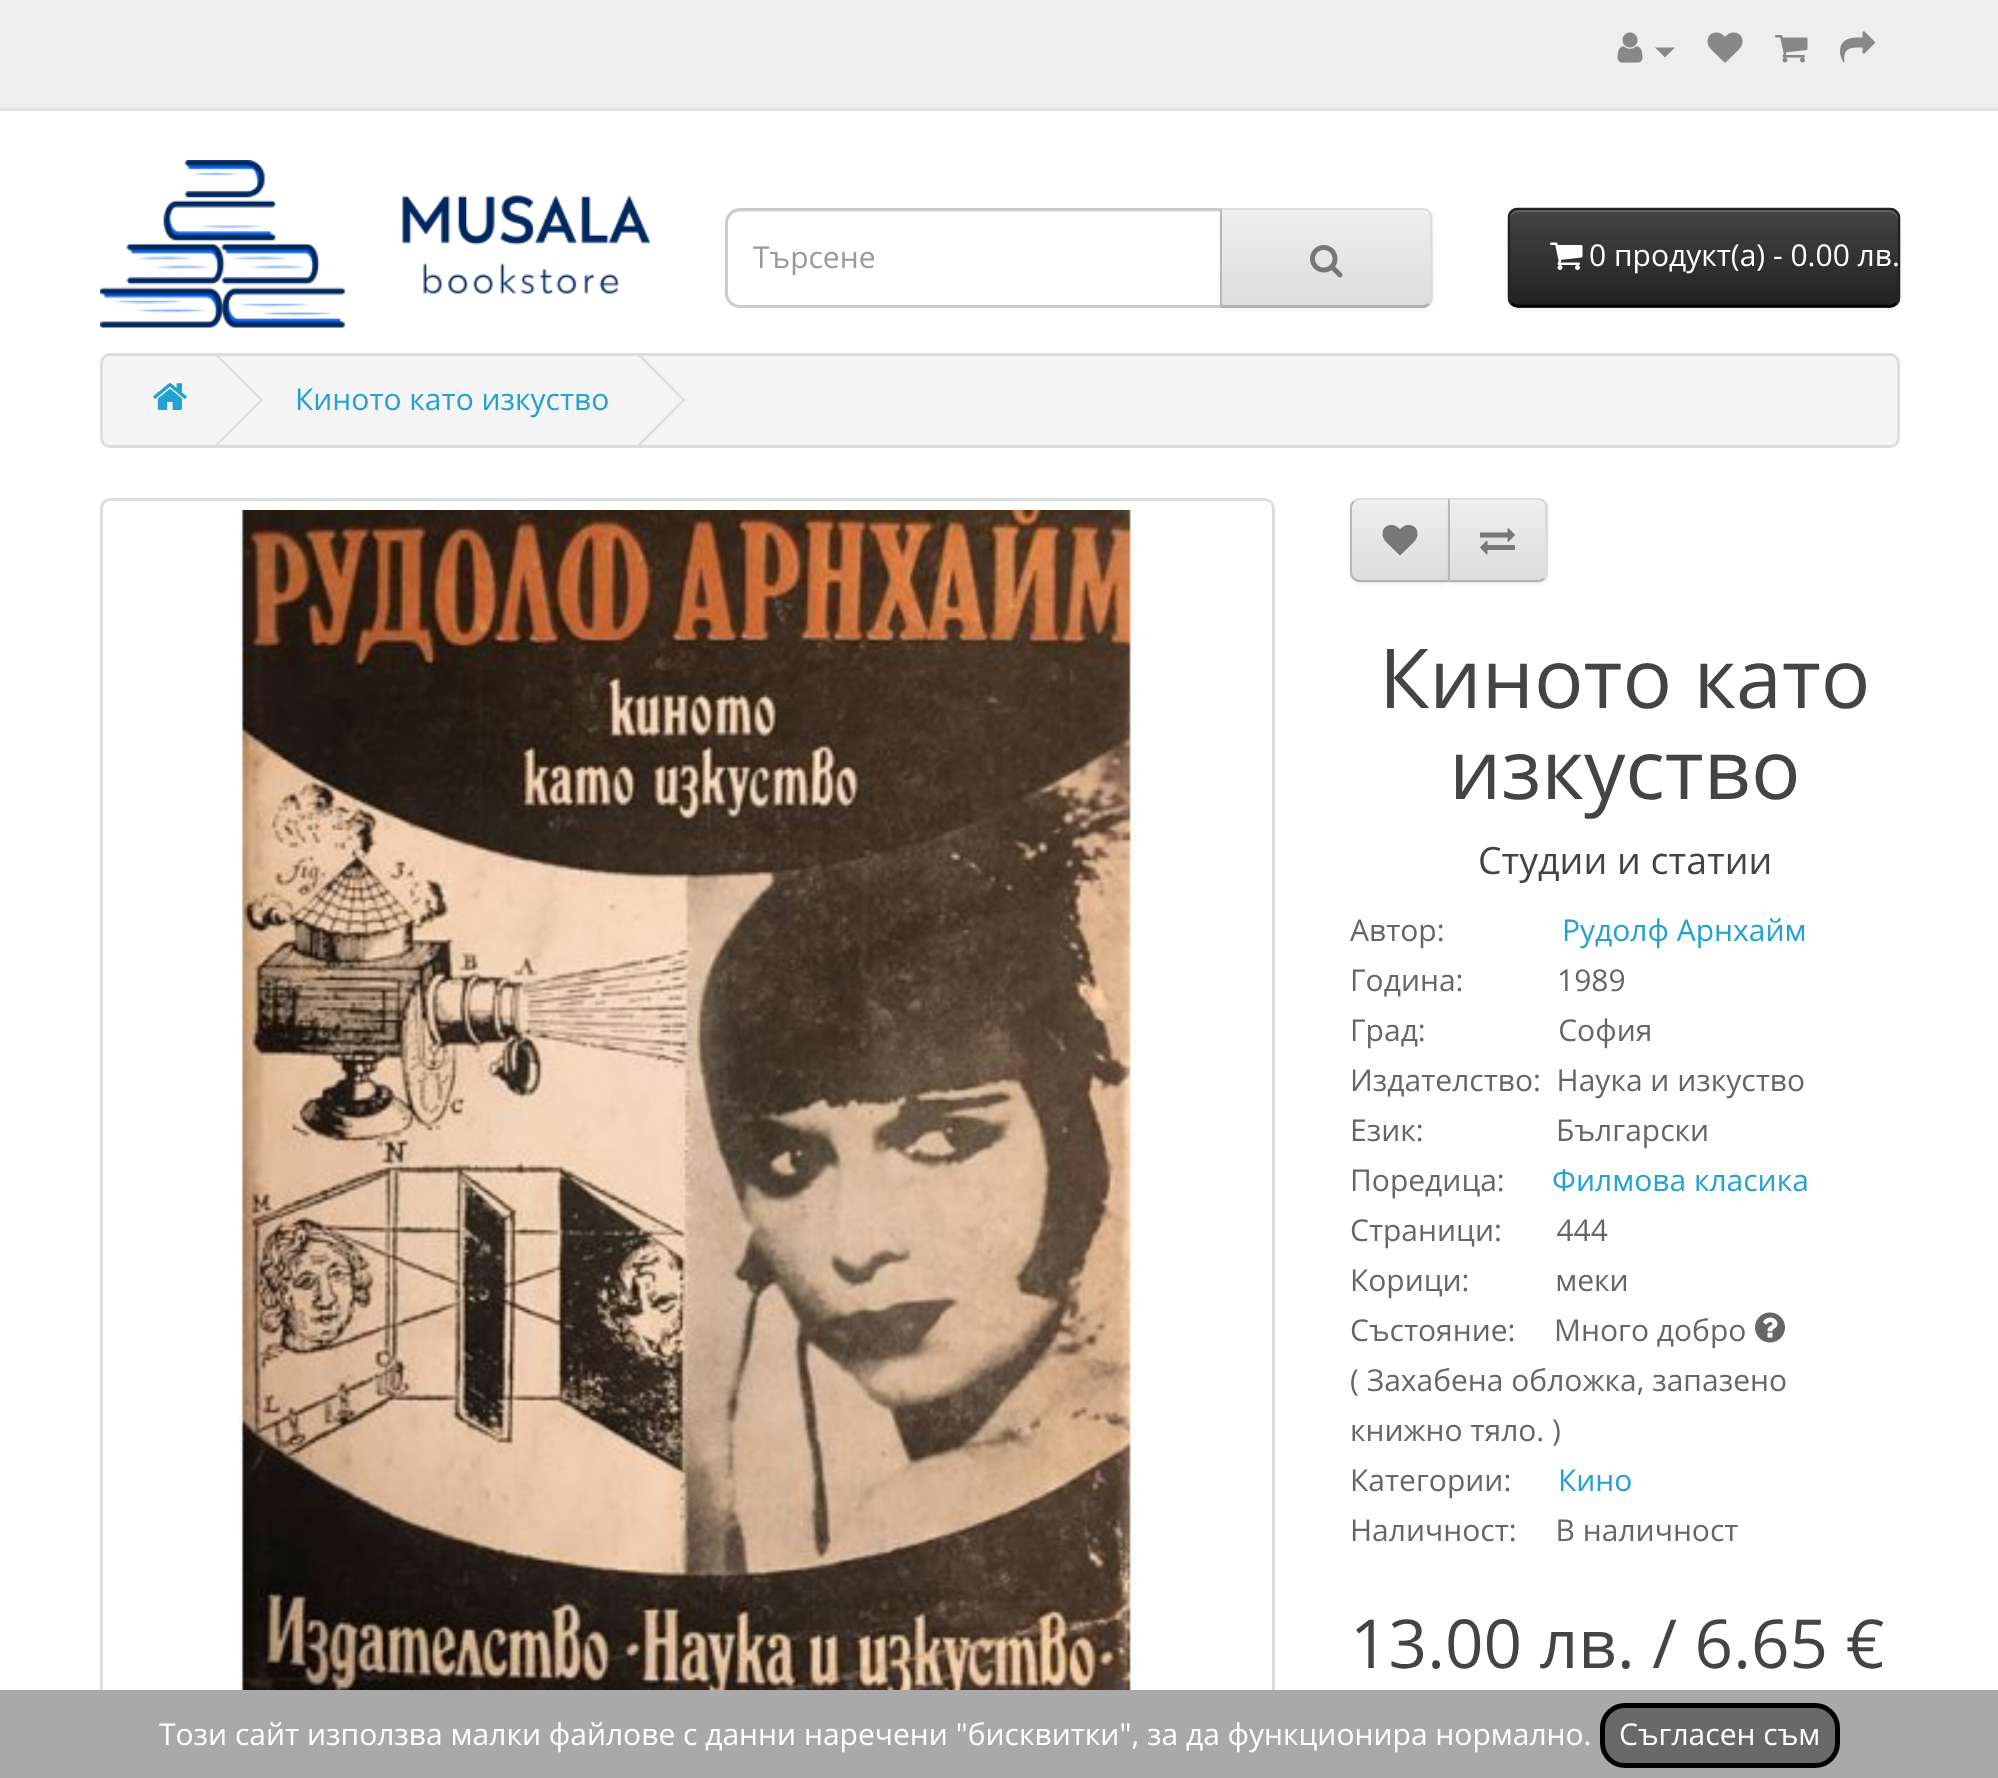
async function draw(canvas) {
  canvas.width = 1998;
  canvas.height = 1778;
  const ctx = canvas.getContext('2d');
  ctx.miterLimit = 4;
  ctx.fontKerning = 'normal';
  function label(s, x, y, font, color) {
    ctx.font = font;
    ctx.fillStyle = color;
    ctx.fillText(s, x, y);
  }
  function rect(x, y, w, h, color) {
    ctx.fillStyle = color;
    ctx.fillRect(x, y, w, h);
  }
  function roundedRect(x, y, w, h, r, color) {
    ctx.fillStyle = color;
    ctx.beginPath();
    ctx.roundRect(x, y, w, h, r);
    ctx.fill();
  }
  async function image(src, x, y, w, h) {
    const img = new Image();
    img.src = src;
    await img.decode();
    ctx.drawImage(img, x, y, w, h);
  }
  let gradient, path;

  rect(0, 0, 1998, 1778, '#fff');
  rect(0, 0, 1998, 108, '#eee');
  rect(0, 108, 1998, 3, '#e2e2e2');
  await image('assets/img1.png', 1617, 32, 26, 31);
  ctx.fillStyle = '#888';
  path = new Path2D('M1655 47.5H1675L1665 57.5Z');
  ctx.fill(path);
  await image('assets/img2.png', 1707, 32, 36, 31);
  await image('assets/img3.png', 1775, 35, 33, 28);
  await image('assets/img4.png', 1840, 31, 35, 32);
  await image('assets/img5.png', 100, 160, 550, 168);
  ctx.fillStyle = '#ececec';
  path = new Path2D('M740 212H1220V210H741C732 210 728 217 728 225C728 218 733 212 740 212Z');
  ctx.fill(path);
  ctx.beginPath();
  ctx.roundRect(726.5, 209.5, 495, 97, [13.5, 0, 0, 13.5]);
  ctx.strokeStyle = '#ccc';
  ctx.lineWidth = 3;
  ctx.stroke();
  ctx.save();
  ctx.beginPath();
  ctx.rect(753, 235, 442, 43);
  ctx.clip();
  label('Търсене', 753, 268, '30px Open Sans', '#999');
  ctx.restore();
  ctx.fillStyle = '#0000000d';
  ctx.filter = 'blur(2.5px)';
  ctx.beginPath();
  ctx.roundRect(1220, 210, 213, 100, 10);
  ctx.fill();
  ctx.filter = 'none';
  ctx.fillStyle = '#e7e7e7';
  ctx.beginPath();
  ctx.roundRect(1220, 208, 213, 100, [0, 10, 10, 0]);
  ctx.fill();
  ctx.save();
  ctx.beginPath();
  ctx.roundRect(1220, 208, 213, 100, [0, 10, 10, 0]);
  ctx.clip();
  gradient = ctx.createLinearGradient(1326, 210, 1326, 305);
  gradient.addColorStop(0, '#eee');
  gradient.addColorStop(1, '#ddd');
  ctx.fillStyle = gradient;
  ctx.fillRect(1222, 210, 211, 95);
  ctx.restore();
  ctx.fillStyle = '#f1f1f1';
  path = new Path2D('M1223 210V212H1422C1427 212 1430 216 1430 220C1430 215 1428 210 1422 210Z');
  ctx.fill(path);
  ctx.fillStyle = '#ddd';
  path = new Path2D('M1429 211C1428 209 1425 208 1422 208H1220L1222 210H1422C1424 210 1426 211 1428 212Z');
  ctx.fill(path);
  path = new Path2D('M1429 211C1431 212 1432 215 1432 218V298C1432 300 1431 303 1430 305L1428 303C1429 302 1430 300 1430 298V218C1430 216 1429 214 1428 212Z');
  ctx.fill(path);
  ctx.fillStyle = '#b3b3b3';
  path = new Path2D('M1425 308H1220L1222 305H1422C1425 305 1427 304 1428 303L1430 305C1428 306 1427 307 1425 308Z');
  ctx.fill(path);
  ctx.fillStyle = '#b7b7b7';
  path = new Path2D('M1222 210L1220 208V308L1222 305Z');
  ctx.fill(path);
  await image('assets/img6.png', 1310, 245, 33, 33);
  ctx.fillStyle = '#0000000d';
  ctx.filter = 'blur(2.5px)';
  ctx.beginPath();
  ctx.roundRect(1508, 210, 392, 100, 10);
  ctx.fill();
  ctx.filter = 'none';
  roundedRect(1508, 208, 392, 100, 10, '#363636');
  ctx.save();
  ctx.beginPath();
  ctx.roundRect(1508, 208, 392, 100, 10);
  ctx.clip();
  gradient = ctx.createLinearGradient(1704, 210, 1704, 305);
  gradient.addColorStop(0, '#444');
  gradient.addColorStop(1, '#222');
  ctx.fillStyle = gradient;
  ctx.fillRect(1508, 210, 392, 95);
  ctx.restore();
  ctx.fillStyle = '#696969';
  path = new Path2D('M1518 212H1890C1894 212 1898 216 1898 220V218C1898 214 1894 210 1890 210H1518C1514 210 1510 214 1510 218V220C1510 216 1513 212 1518 212Z');
  ctx.fill(path);
  path = new Path2D('M1896 303.5C1894.5 305.5 1892.5 306 1890 306H1517.5C1515 306 1513 305.5 1511.5 303.5');
  ctx.strokeStyle = '#000';
  ctx.lineWidth = 2.5;
  ctx.stroke(path);
  path = new Path2D('M1511.5 303.5C1509.5 302 1509 300 1509 297.5V217.5C1509 215 1509.5 213 1511.5 211.5C1513 209.5 1515 209 1517.5 209H1890C1892.5 209 1894.5 209.5 1896 211.5C1898 213 1899 215 1899 217.5V297.5C1899 300 1898 302 1896 303.5');
  ctx.strokeStyle = '#222';
  ctx.stroke(path);
  await image('assets/img7.png', 1550, 242, 33, 28);
  label('0 продукт(а) - 0.00 лв.', 1589, 266, '30px Open Sans', '#fff');
  ctx.fillStyle = '#f5f5f5';
  ctx.beginPath();
  ctx.roundRect(101.5, 354.5, 1797, 92, 8.5);
  ctx.fill();
  ctx.strokeStyle = '#ddd';
  ctx.lineWidth = 3;
  ctx.stroke();
  await image('assets/img8.png', 153, 383, 34, 27);
  ctx.fillStyle = '#ddd';
  path = new Path2D('M216 356L217 354L263 400L262 402Z');
  ctx.fill(path);
  path = new Path2D('M216 444L262 398L263 400L217 446Z');
  ctx.fill(path);
  label('Киното като изкуство', 295, 410, '30px Open Sans', '#23a1d1');
  ctx.fillStyle = '#ddd';
  path = new Path2D('M638 356L640 354L685 400L684 402Z');
  ctx.fill(path);
  path = new Path2D('M638 444L684 398L685 400L640 446Z');
  ctx.fill(path);
  ctx.beginPath();
  ctx.roundRect(101.5, 499.5, 1172, 1222, 8.5);
  ctx.stroke();
  await image('assets/img9.png', 237, 510, 901, 1180);
  ctx.fillStyle = '#0000000d';
  ctx.filter = 'blur(2.5px)';
  ctx.beginPath();
  ctx.roundRect(1350, 500, 100, 85, 10);
  ctx.fill();
  ctx.filter = 'none';
  ctx.fillStyle = '#e7e7e7';
  ctx.beginPath();
  ctx.roundRect(1350, 498, 100, 85, [10, 0, 0, 10]);
  ctx.fill();
  ctx.save();
  ctx.beginPath();
  ctx.roundRect(1350, 498, 100, 85, [10, 0, 0, 10]);
  ctx.clip();
  gradient = ctx.createLinearGradient(1400, 500, 1400, 580);
  gradient.addColorStop(0, '#eee');
  gradient.addColorStop(1, '#ddd');
  ctx.fillStyle = gradient;
  ctx.fillRect(1350, 500, 98, 80);
  ctx.restore();
  ctx.fillStyle = '#f1f1f1';
  path = new Path2D('M1360 502H1448V500H1361C1357 500 1354 503 1353 506C1355 504 1357 502 1360 502Z');
  ctx.fill(path);
  ctx.fillStyle = '#ddd';
  path = new Path2D('M1360 498C1357 498 1355 499 1353 501L1355 502C1356 501 1358 500 1360 500H1448L1450 498Z');
  ctx.fill(path);
  ctx.fillStyle = '#b3b3b3';
  path = new Path2D('M1450 582H1360C1357 582 1355 581 1353 579L1355 578C1356 579 1358 580 1360 580H1448Z');
  ctx.fill(path);
  ctx.fillStyle = '#b7b7b7';
  path = new Path2D('M1350 508V572C1350 575 1351 578 1353 579L1355 578C1353 577 1352 575 1352 572V508C1352 505 1353 503 1355 502L1353 501C1351 502 1350 505 1350 508Z');
  ctx.fill(path);
  await image('assets/img10.png', 1382, 525, 36, 30);
  ctx.fillStyle = '#0000000d';
  ctx.filter = 'blur(2.5px)';
  ctx.beginPath();
  ctx.roundRect(1448, 500, 100, 85, 10);
  ctx.fill();
  ctx.filter = 'none';
  ctx.fillStyle = '#e7e7e7';
  ctx.beginPath();
  ctx.roundRect(1448, 498, 100, 85, [0, 10, 10, 0]);
  ctx.fill();
  ctx.save();
  ctx.beginPath();
  ctx.roundRect(1448, 498, 100, 85, [0, 10, 10, 0]);
  ctx.clip();
  gradient = ctx.createLinearGradient(1498, 500, 1498, 580);
  gradient.addColorStop(0, '#eee');
  gradient.addColorStop(1, '#ddd');
  ctx.fillStyle = gradient;
  ctx.fillRect(1450, 500, 98, 80);
  ctx.restore();
  ctx.fillStyle = '#f1f1f1';
  path = new Path2D('M1450 502H1538C1542 502 1545 506 1545 510V508C1545 504 1541 500 1537 500H1450Z');
  ctx.fill(path);
  ctx.fillStyle = '#ddd';
  path = new Path2D('M1448 498L1450 500H1539L1543 502L1545 500C1543 499 1540 498 1538 498Z');
  ctx.fill(path);
  path = new Path2D('M1545 500C1546 502 1547 503 1548 505V575C1547 577 1546 578 1545 580L1543 578C1544 577 1545 575 1545 572V508C1545 505 1544 503 1543 502Z');
  ctx.fill(path);
  ctx.fillStyle = '#b3b3b3';
  path = new Path2D('M1545 580C1543 581 1540 582 1538 582H1448L1450 580H1539L1543 578Z');
  ctx.fill(path);
  ctx.fillStyle = '#b7b7b7';
  path = new Path2D('M1450 500L1448 498V582L1450 580Z');
  ctx.fill(path);
  await image('assets/img11.png', 1480, 528, 35, 27);
  label('Киното като', 1379, 708, '82.5px Open Sans', '#444');
  label('изкуство', 1449, 799, '82.5px Open Sans', '#444');
  label('Студии и статии', 1478, 874, '37.5px Open Sans', '#444');
  label('Автор:', 1350, 941, '30px Open Sans', '#666');
  label('Рудолф Арнхайм', 1562, 941, '30px Open Sans', '#23a1d1');
  label('Година:            1989', 1350, 991, '30px Open Sans', '#666');
  label('Град:                 София', 1350, 1041, '30px Open Sans', '#666');
  label('Издателство:  Наука и изкуство', 1350, 1091, '30px Open Sans', '#666');
  label('Език:                 Български', 1350, 1141, '30px Open Sans', '#666');
  label('Поредица:', 1350, 1191, '30px Open Sans', '#666');
  label('Филмова класика', 1552, 1191, '30px Open Sans', '#23a1d1');
  label('Страници:       444', 1350, 1241, '30px Open Sans', '#666');
  label('Корици:           меки', 1350, 1291, '30px Open Sans', '#666');
  label('Състояние:', 1350, 1341, '30px Open Sans', '#666');
  label('Много добро', 1554, 1341, '30px Open Sans', '#666');
  await image('assets/img12.png', 1755, 1312, 30, 31);
  label('( Захабена обложка, запазено', 1350, 1391, '30px Open Sans', '#666');
  label('книжно тяло. )', 1350, 1441, '30px Open Sans', '#666');
  label('Категории:', 1350, 1491, '30px Open Sans', '#666');
  label('Кино', 1558, 1491, '30px Open Sans', '#23a1d1');
  label('Наличност:     В наличност', 1350, 1541, '30px Open Sans', '#666');
  label('13.00 лв. / 6.65 €', 1350, 1668, '67.5px Open Sans', '#444');
  rect(0, 1690, 1998, 88, '#a9a9a9');
  label('Този сайт използва малки файлове с данни наречени "бисквитки", за да функционира нормално.', 159, 1745, '30px Open Sans', '#fff');
  ctx.fillStyle = '#696969';
  ctx.beginPath();
  ctx.roundRect(1602.5, 1705.5, 235, 60, 22.5);
  ctx.fill();
  ctx.strokeStyle = '#000';
  ctx.lineWidth = 5;
  ctx.stroke();
  label('Съгласен съм', 1619, 1745, '30px Open Sans', '#fff');
}

draw(document.querySelector('canvas'));
